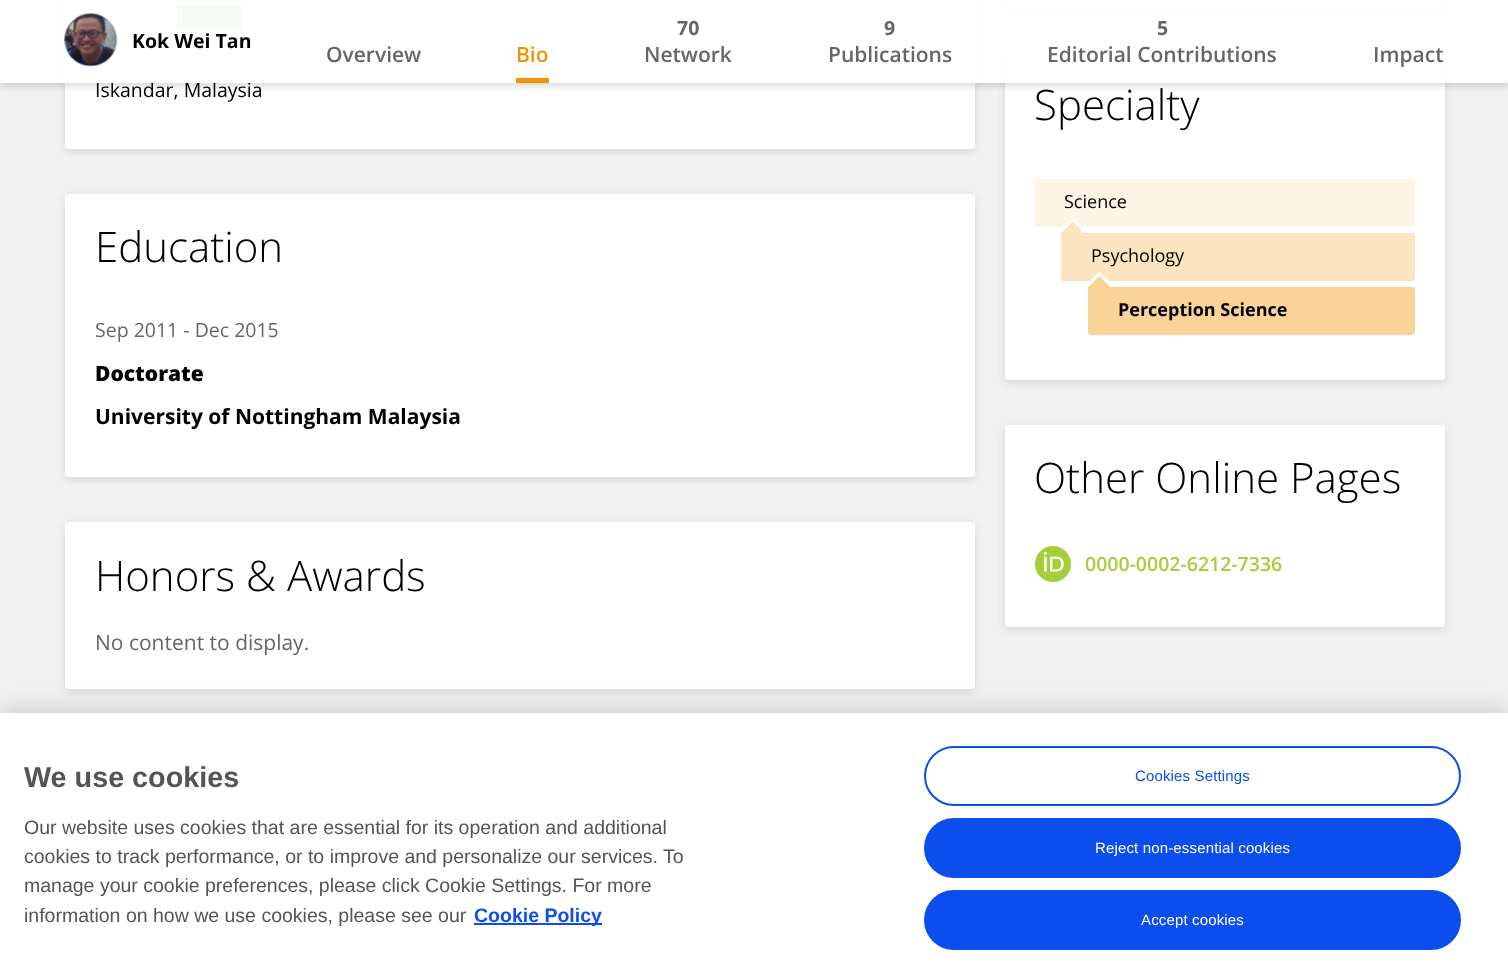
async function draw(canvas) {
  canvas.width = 1508;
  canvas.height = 978;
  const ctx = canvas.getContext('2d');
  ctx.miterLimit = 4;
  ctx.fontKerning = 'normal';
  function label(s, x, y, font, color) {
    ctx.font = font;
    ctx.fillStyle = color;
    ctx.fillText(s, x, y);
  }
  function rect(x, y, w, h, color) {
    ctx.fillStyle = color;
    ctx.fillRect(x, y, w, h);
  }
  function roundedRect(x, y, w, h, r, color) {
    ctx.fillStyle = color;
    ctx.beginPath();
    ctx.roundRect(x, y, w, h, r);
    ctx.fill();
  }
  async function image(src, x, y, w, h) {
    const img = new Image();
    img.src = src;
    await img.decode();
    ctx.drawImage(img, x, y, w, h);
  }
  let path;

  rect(0, 0, 1508, 978, '#f1f1f1');
  ctx.fillStyle = '#0000001a';
  ctx.filter = 'blur(4px)';
  ctx.beginPath();
  ctx.roundRect(65, -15, 910, 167, 3);
  ctx.fill();
  ctx.filter = 'none';
  roundedRect(65, -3, 910, 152, 3, '#fff');
  rect(177, 5, 65, 24, '#51b749');
  ctx.fillStyle = '#0000001a';
  ctx.filter = 'blur(4px)';
  ctx.beginPath();
  ctx.roundRect(1005, -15, 440, 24, 3);
  ctx.fill();
  ctx.filter = 'none';
  rect(1005, 0, 440, 6, '#fff');
  ctx.fillStyle = '#0000001a';
  ctx.filter = 'blur(4px)';
  ctx.beginPath();
  ctx.roundRect(1005, 54, 440, 329, 3);
  ctx.fill();
  ctx.filter = 'none';
  roundedRect(1005, 51, 440, 329, 3, '#fff');
  ctx.save();
  path = new Path2D('M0 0H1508V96H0ZM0 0H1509V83H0Z');
  ctx.clip(path, 'evenodd');
  ctx.fillStyle = '#00000026';
  ctx.filter = 'blur(3px)';
  ctx.beginPath();
  ctx.rect(0, 3, 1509, 83);
  ctx.fill();
  ctx.filter = 'none';
  ctx.restore();
  label('Iskandar, Malaysia', 95, 97, '19.5px Open Sans', '#000');
  rect(0, 0, 1508, 83, '#fffffff2');
  await image('assets/img1.png', 64, 13, 54, 54);
  label('Kok Wei Tan', 132, 48, 'bold 19.5px Open Sans', '#000');
  label('Overview', 326, 62, '600 21px Open Sans', '#666');
  rect(516, 78, 33, 5, '#f29400');
  label('Bio', 516, 62, '600 21px Open Sans', '#f29400');
  label('70', 677, 35, 'bold 19.5px Open Sans', '#666');
  label('Network', 644, 62, '600 21px Open Sans', '#666');
  label('9', 884, 35, 'bold 19.5px Open Sans', '#666');
  label('Publications', 828, 62, '600 21px Open Sans', '#666');
  label('5', 1157, 35, 'bold 19.5px Open Sans', '#666');
  label('Editorial Contributions', 1047, 62, '600 21px Open Sans', '#666');
  label('Impact', 1373, 62, '600 21px Open Sans', '#666');
  ctx.fillStyle = '#0000001a';
  ctx.filter = 'blur(4px)';
  ctx.beginPath();
  ctx.roundRect(65, 197, 910, 283, 3);
  ctx.fill();
  ctx.filter = 'none';
  roundedRect(65, 194, 910, 283, 3, '#fff');
  label('Education', 95, 262, '300 42px Open Sans', '#000');
  label('Sep 2011 - Dec 2015', 95, 337, '19.5px Open Sans', '#666');
  label('Doctorate', 95, 381, '800 21px Open Sans', '#000');
  label('University of Nottingham Malaysia', 95, 424, 'bold 21px Open Sans', '#000');
  ctx.fillStyle = '#0000001a';
  ctx.filter = 'blur(4px)';
  ctx.beginPath();
  ctx.roundRect(65, 525, 910, 167, 3);
  ctx.fill();
  ctx.filter = 'none';
  roundedRect(65, 522, 910, 167, 3, '#fff');
  label('Honors & Awards', 95, 591, '300 42px Open Sans', '#000');
  label('No content to display.', 95, 650, '21px Open Sans', '#666');
  label('Specialty', 1034, 120, '300 42px Open Sans', '#000');
  ctx.fillStyle = '#fdf4e5';
  ctx.beginPath();
  ctx.roundRect(1035, 179, 380, 48, [0, 3, 3, 3]);
  ctx.fill();
  label('Science', 1064, 208, '18px Open Sans', '#000');
  ctx.fillStyle = '#fbe4bf';
  ctx.beginPath();
  ctx.roundRect(1061, 233, 354, 48, [0, 3, 3, 3]);
  ctx.fill();
  ctx.fillStyle = '#fff';
  path = new Path2D('M1087.5 232.5H1057.5L1072.5 217.5Z');
  ctx.fill(path);
  ctx.fillStyle = '#fbe4bf';
  path = new Path2D('M1084.5 234H1060.5L1072.5 222Z');
  ctx.fill(path);
  label('Psychology', 1091, 262, '18px Open Sans', '#000');
  ctx.fillStyle = '#f9d398';
  ctx.beginPath();
  ctx.roundRect(1088, 287, 327, 48, [0, 3, 3, 3]);
  ctx.fill();
  ctx.fillStyle = '#fff';
  path = new Path2D('M1114.5 286.5H1084.5L1099.5 271.5Z');
  ctx.fill(path);
  ctx.fillStyle = '#f9d398';
  path = new Path2D('M1111.5 288H1087.5L1099.5 276Z');
  ctx.fill(path);
  label('Perception Science', 1118, 316, 'bold 18px Open Sans', '#000');
  ctx.fillStyle = '#0000001a';
  ctx.filter = 'blur(4px)';
  ctx.beginPath();
  ctx.roundRect(1005, 428, 440, 202, 3);
  ctx.fill();
  ctx.filter = 'none';
  roundedRect(1005, 425, 440, 202, 3, '#fff');
  label('Other Online Pages', 1034, 493, '300 42px Open Sans', '#000');
  ctx.fillStyle = '#a6ce39';
  ctx.beginPath();
  ctx.arc(1053, 564, 18, 0, 2 * Math.PI);
  ctx.fill();
  await image('assets/img2.png', 1044, 552, 20, 20);
  label('0000-0002-6212-7336', 1085, 571, '600 19.5px Open Sans', '#a6ce39');
  ctx.fillStyle = '#00000033';
  ctx.filter = 'blur(13.5px)';
  ctx.beginPath();
  ctx.rect(0, 713, 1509, 265);
  ctx.fill();
  ctx.filter = 'none';
  rect(0, 713, 1508, 265, '#fff');
  label('We use cookies', 24, 787, 'bold 28.75px Liberation Sans', '#545454');
  label('Our website uses cookies that are essential for its operation and additional', 24, 834, '19.5px Liberation Sans', '#545454');
  label('cookies to track performance, or to improve and personalize our services. To', 24, 863, '19.5px Liberation Sans', '#545454');
  label('manage your cookie preferences, please click Cookie Settings. For more', 24, 892, '19.5px Liberation Sans', '#545454');
  label('information on how we use cookies, please see our', 24, 922, '19.5px Liberation Sans', '#545454');
  rect(474, 923, 128, 2, '#0c4ded');
  label('Cookie Policy', 474, 922, 'bold 19.5px Liberation Sans', '#0c4ded');
  ctx.beginPath();
  ctx.roundRect(925, 747, 535, 58, 29);
  ctx.strokeStyle = '#0c4ded';
  ctx.lineWidth = 2;
  ctx.stroke();
  ctx.letterSpacing = '0.15px';
  label('Cookies Settings', 1135, 781, '15px Liberation Sans', '#0c4ded');
  ctx.beginPath();
  ctx.roundRect(925, 819, 535, 58, 29);
  ctx.fill();
  ctx.stroke();
  label('Reject non-essential cookies', 1095, 853, '15px Liberation Sans', '#fff');
  ctx.fillStyle = '#0c4ded';
  ctx.beginPath();
  ctx.roundRect(925, 891, 535, 58, 29);
  ctx.fill();
  ctx.stroke();
  label('Accept cookies', 1141, 925, '15px Liberation Sans', '#fff');
}

draw(document.querySelector('canvas'));
